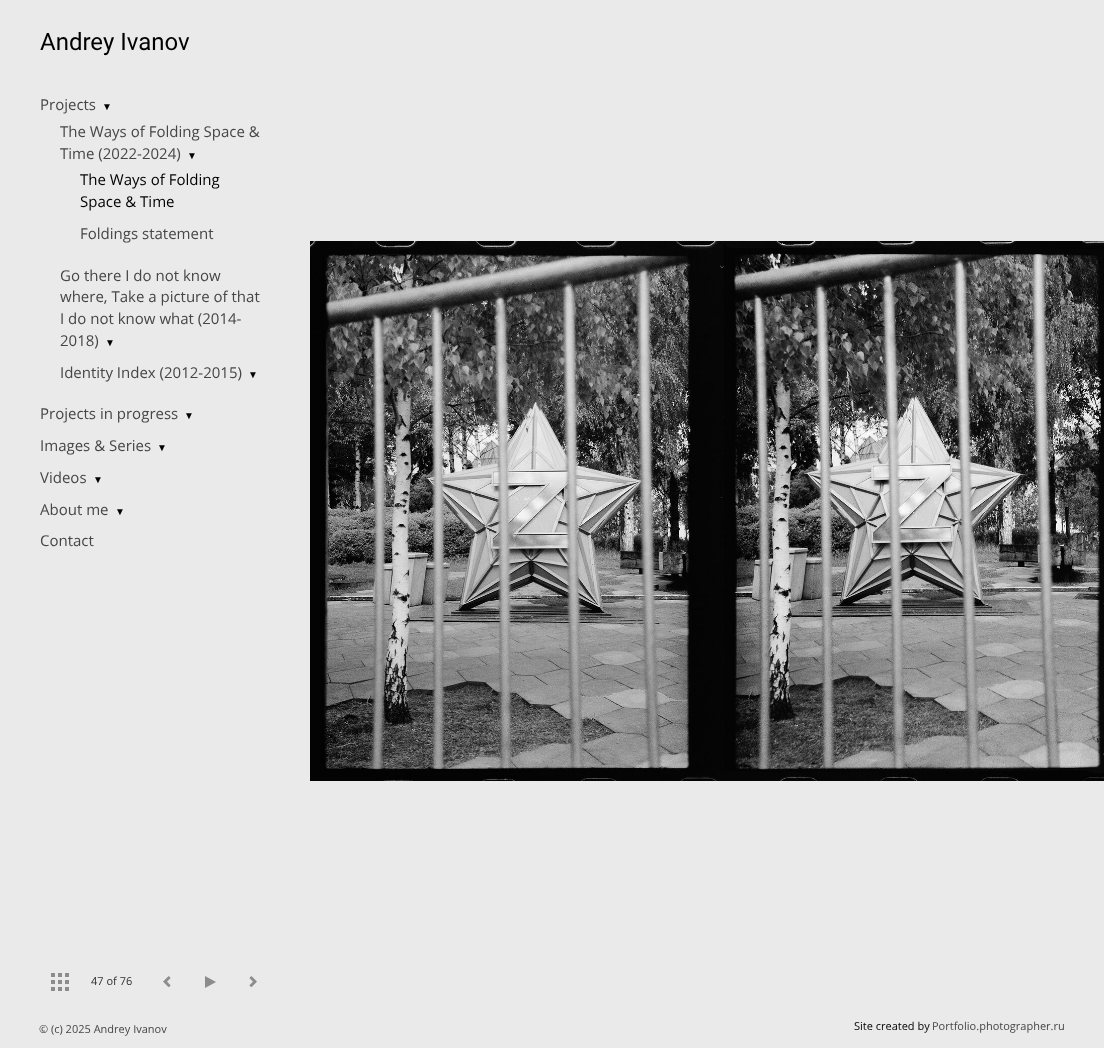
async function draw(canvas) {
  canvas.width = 1104;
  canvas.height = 1048;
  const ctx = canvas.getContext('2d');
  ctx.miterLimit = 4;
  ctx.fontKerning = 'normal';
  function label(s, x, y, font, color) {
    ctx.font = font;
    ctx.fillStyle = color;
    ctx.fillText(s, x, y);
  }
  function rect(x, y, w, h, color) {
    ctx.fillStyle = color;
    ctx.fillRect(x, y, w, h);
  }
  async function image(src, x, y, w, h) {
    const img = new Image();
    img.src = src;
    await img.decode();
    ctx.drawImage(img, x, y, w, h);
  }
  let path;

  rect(0, 0, 1104, 1048, '#eaeaea');
  label('Andrey Ivanov', 40, 50, '24px Roboto', '#000');
  label('Projects', 40, 110, '15px Open Sans', '#464646');
  label('▼', 102, 110, '10px Liberation Serif', '#000');
  label('The Ways of Folding Space &', 60, 137, '15px Open Sans', '#464646');
  label('Time (2022-2024)', 60, 159, '15px Open Sans', '#464646');
  label('▼', 187, 159, '10px Liberation Serif', '#000');
  label('The Ways of Folding', 80, 185, '15px Open Sans', '#000');
  label('Space & Time', 80, 207, '15px Open Sans', '#000');
  label('Foldings statement', 80, 239, '15px Open Sans', '#464646');
  label('Go there I do not know', 60, 281, '15px Open Sans', '#464646');
  label('where, Take a picture of that', 60, 302, '15px Open Sans', '#464646');
  label('I do not know what (2014-', 60, 324, '15px Open Sans', '#464646');
  label('2018)', 60, 346, '15px Open Sans', '#464646');
  label('▼', 105, 346, '10px Liberation Serif', '#000');
  label('Identity Index (2012-2015)', 60, 378, '15px Open Sans', '#464646');
  label('▼', 248, 378, '10px Liberation Serif', '#000');
  label('Projects in progress', 40, 419, '15px Open Sans', '#464646');
  label('▼', 184, 419, '10px Liberation Serif', '#000');
  label('Images & Series', 40, 451, '15px Open Sans', '#464646');
  label('▼', 157, 451, '10px Liberation Serif', '#000');
  label('Videos', 40, 483, '15px Open Sans', '#464646');
  label('▼', 93, 483, '10px Liberation Serif', '#000');
  label('About me', 40, 515, '15px Open Sans', '#464646');
  label('▼', 115, 515, '10px Liberation Serif', '#000');
  label('Contact', 40, 546, '15px Open Sans', '#464646');
  await image('assets/img1.png', 51, 973, 18, 18);
  label('47 of 76', 91, 985, '11px Open Sans', '#2f2f2f');
  await image('assets/img2.png', 163, 976, 8, 12);
  ctx.fillStyle = '#8c8c8c';
  path = new Path2D('M216 982L205 988V976Z');
  ctx.fill(path);
  await image('assets/img3.png', 249, 976, 8, 12);
  await image('assets/img4.png', 310, 241, 794, 540);
  label('© (c) 2025 Andrey Ivanov', 39, 1033, '11px Open Sans', '#464646');
  label('Site created by', 854, 1030, '11px Open Sans', '#000');
  label('Portfolio.photographer.ru', 932, 1030, '11px Open Sans', '#464646');
}

draw(document.querySelector('canvas'));
